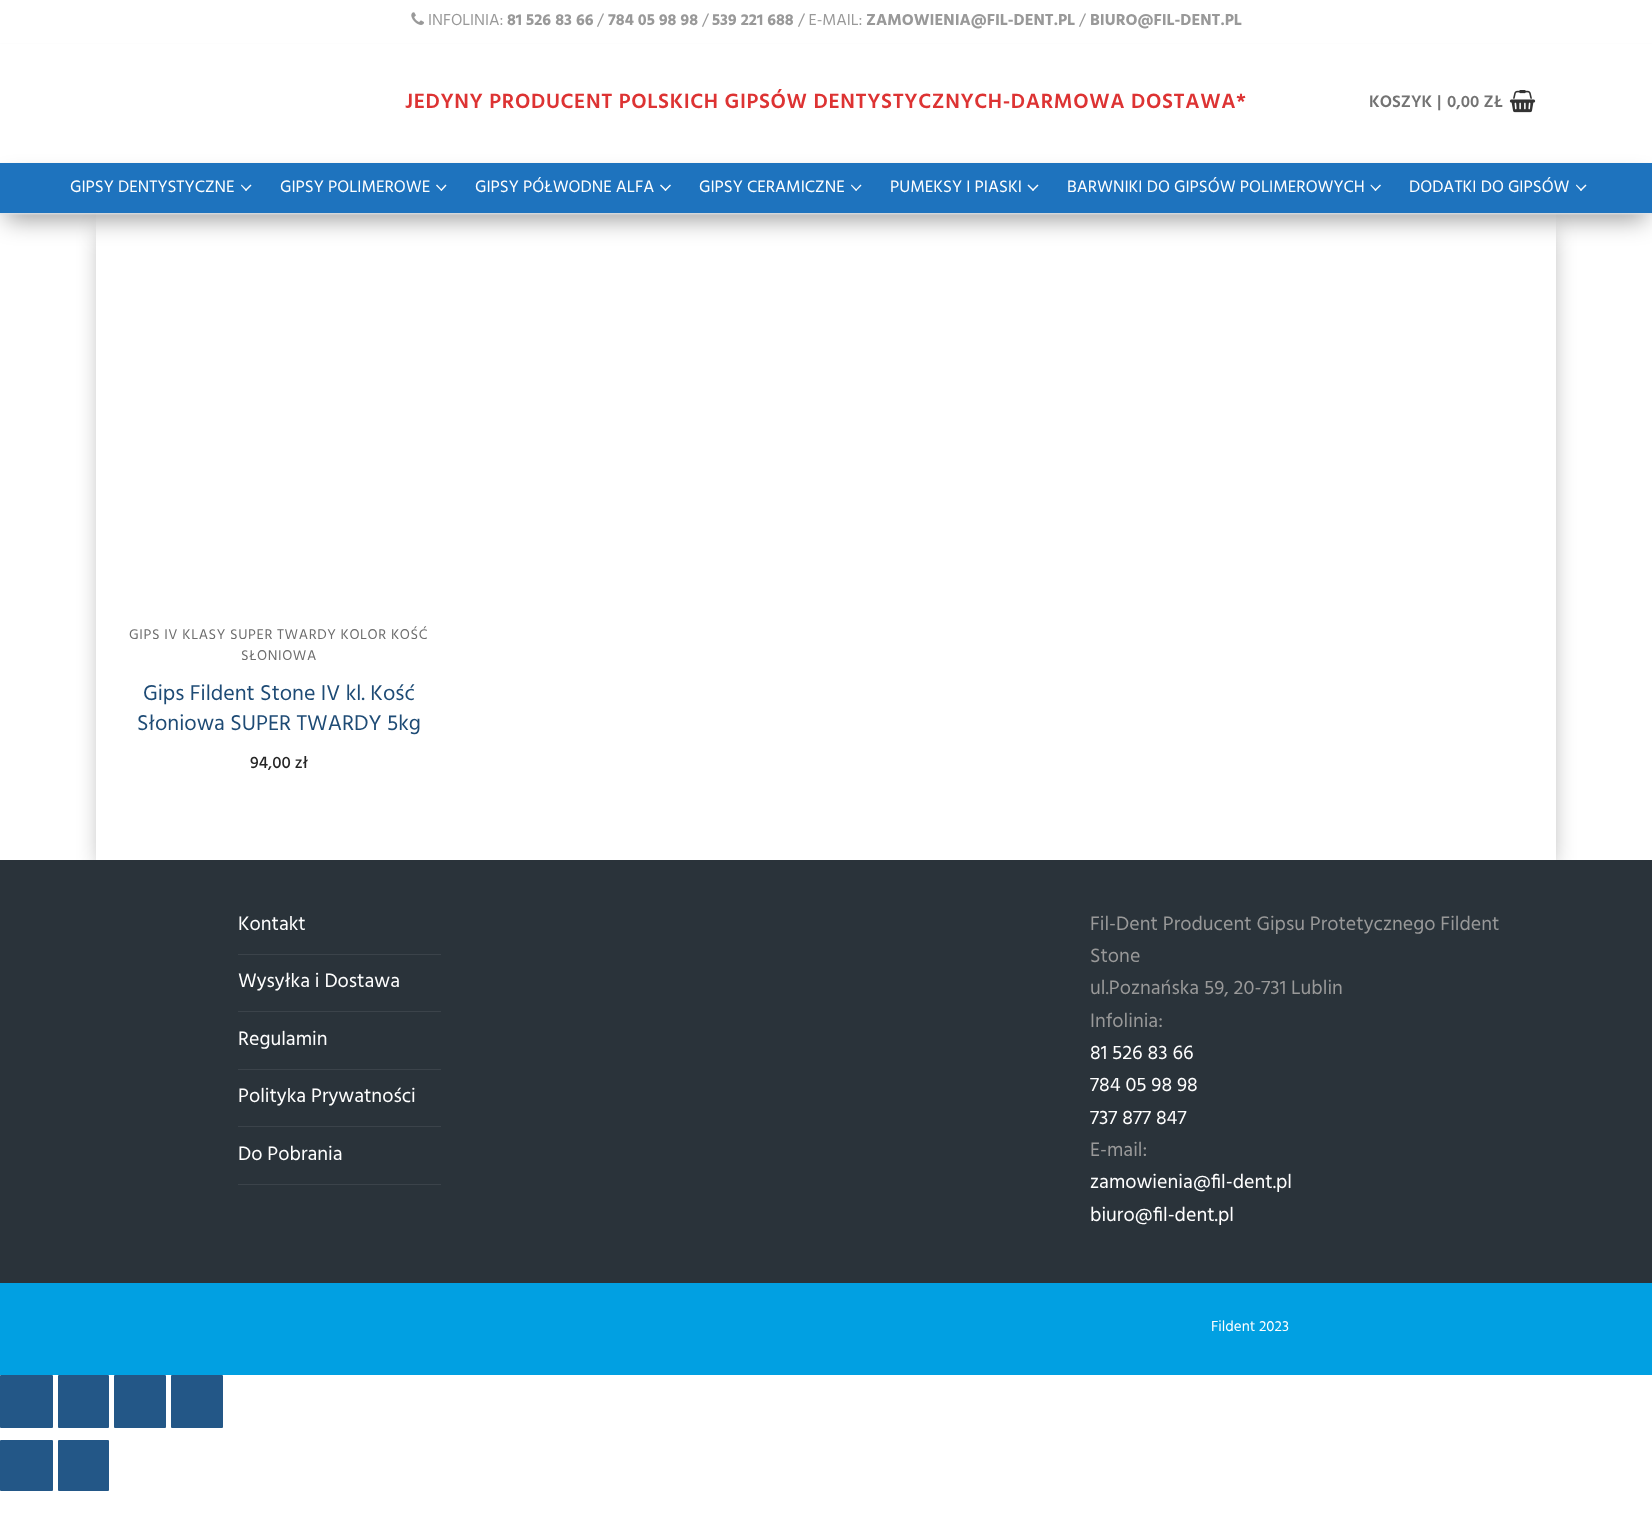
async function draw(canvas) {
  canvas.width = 1652;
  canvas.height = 1534;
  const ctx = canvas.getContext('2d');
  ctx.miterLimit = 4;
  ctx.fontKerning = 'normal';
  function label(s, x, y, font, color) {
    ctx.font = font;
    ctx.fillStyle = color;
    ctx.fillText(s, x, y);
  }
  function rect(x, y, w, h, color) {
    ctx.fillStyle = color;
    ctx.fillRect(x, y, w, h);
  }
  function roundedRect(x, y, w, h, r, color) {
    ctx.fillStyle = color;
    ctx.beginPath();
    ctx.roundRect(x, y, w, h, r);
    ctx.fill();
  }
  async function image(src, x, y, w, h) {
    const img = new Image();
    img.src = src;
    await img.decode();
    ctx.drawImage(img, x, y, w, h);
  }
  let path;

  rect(0, 0, 1652, 1534, '#fff');
  await image('assets/img1.png', 411, 12, 13, 13);
  label('INFOLINIA:', 428, 25, '16.25px Hind', '#999');
  label('81 526 83 66', 507, 25, 'bold 16.25px Hind', '#999');
  label('/', 597, 25, '16.25px Hind', '#999');
  label('784 05 98 98', 608, 25, 'bold 16.25px Hind', '#999');
  label('/', 702, 25, '16.25px Hind', '#999');
  label('539 221 688', 712, 25, 'bold 16.25px Hind', '#999');
  label('/ E-MAIL:', 798, 25, '16.25px Hind', '#999');
  label('ZAMOWIENIA@FIL-DENT.PL', 866, 25, 'bold 16.25px Hind', '#999');
  label('/', 1079, 25, '16.25px Hind', '#999');
  label('BIURO@FIL-DENT.PL', 1090, 25, 'bold 16.25px Hind', '#999');
  ctx.fillStyle = '#e1e5ea';
  ctx.filter = 'blur(1px)';
  ctx.beginPath();
  ctx.rect(0, 45, 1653, 119);
  ctx.fill();
  ctx.filter = 'none';
  rect(0, 44, 1652, 119, '#fff');
  ctx.letterSpacing = '0.62px';
  label('JEDYNY PRODUCENT POLSKICH GIPSÓW DENTYSTYCZNYCH-DARMOWA DOSTAWA*', 405, 108, '600 21.25px Hind', '#d33');
  ctx.letterSpacing = '0px';
  label('KOSZYK', 1369, 107, '600 17px Hind', '#737373');
  label('|', 1437, 107, '600 17px Hind', '#737373');
  label('0,00 ZŁ', 1447, 107, '600 17px Hind', '#737373');
  await image('assets/img2.png', 1509, 90, 27, 23);
  ctx.fillStyle = '#00000066';
  ctx.filter = 'blur(12.5px)';
  ctx.beginPath();
  ctx.rect(103, 231, 1447, 635);
  ctx.fill();
  ctx.filter = 'none';
  rect(96, 213, 1460, 647, '#fff');
  ctx.fillStyle = '#00000066';
  ctx.filter = 'blur(12.5px)';
  ctx.beginPath();
  ctx.rect(6, 181, 1640, 38);
  ctx.fill();
  ctx.filter = 'none';
  ctx.fillStyle = '#e1e5ea';
  ctx.filter = 'blur(1px)';
  ctx.beginPath();
  ctx.rect(0, 164, 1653, 50);
  ctx.fill();
  ctx.filter = 'none';
  rect(0, 163, 1652, 50, '#1e73be');
  label('GIPSY DENTYSTYCZNE', 70, 192, '17px Hind', '#fff');
  path = new Path2D('M246 191L241 185.5L241.5 184.5L247 190Z');
  ctx.fill(path);
  path = new Path2D('M246 191L245 190L250.5 184.5L251.5 185.5Z');
  ctx.fill(path);
  label('GIPSY POLIMEROWE', 280, 192, '17px Hind', '#fff');
  path = new Path2D('M441.5 191L436 185.5L437 184.5L442 190Z');
  ctx.fill(path);
  path = new Path2D('M441.5 191L440.5 190L445.5 184.5L446.5 185.5Z');
  ctx.fill(path);
  label('GIPSY PÓŁWODNE ALFA', 475, 192, '17px Hind', '#fff');
  path = new Path2D('M665.5 191L660 185.5L661 184.5L666.5 190Z');
  ctx.fill(path);
  path = new Path2D('M665.5 191L664.5 190L670 184.5L671 185.5Z');
  ctx.fill(path);
  label('GIPSY CERAMICZNE', 699, 192, '17px Hind', '#fff');
  path = new Path2D('M856 191L851 185.5L851.5 184.5L857 190Z');
  ctx.fill(path);
  path = new Path2D('M856 191L855.5 190L860.5 184.5L861.5 185.5Z');
  ctx.fill(path);
  label('PUMEKSY I PIASKI', 890, 192, '17px Hind', '#fff');
  path = new Path2D('M1033 191L1027.5 185.5L1028.5 184.5L1034 190Z');
  ctx.fill(path);
  path = new Path2D('M1033 191L1032 190L1037.5 184.5L1038.5 185.5Z');
  ctx.fill(path);
  label('BARWNIKI DO GIPSÓW POLIMEROWYCH', 1067, 192, '17px Hind', '#fff');
  path = new Path2D('M1375.5 191L1370.5 185.5L1371 184.5L1376.5 190Z');
  ctx.fill(path);
  path = new Path2D('M1375.5 191L1374.5 190L1380 184.5L1381 185.5Z');
  ctx.fill(path);
  label('DODATKI DO GIPSÓW', 1409, 192, '17px Hind', '#fff');
  path = new Path2D('M1581 191L1576 185.5L1576.5 184.5L1582 190Z');
  ctx.fill(path);
  path = new Path2D('M1581 191L1580 190L1585.5 184.5L1586.5 185.5Z');
  ctx.fill(path);
  ctx.letterSpacing = '0.62px';
  label('GIPS IV KLASY SUPER TWARDY KOLOR KOŚĆ', 129, 639, '14.4px Hind', '#6d6d6d');
  label('SŁONIOWA', 241, 660, '14.4px Hind', '#6d6d6d');
  ctx.letterSpacing = '0px';
  label('Gips Fildent Stone IV kl. Kość', 143, 700, '22px Hind', '#1e4b75');
  label('Słoniowa SUPER TWARDY 5kg', 137, 730, '22px Hind', '#1e4b75');
  label('94,00 zł', 250, 768, '500 17px Hind', '#252525');
  rect(0, 860, 1652, 423, '#2a333a');
  rect(238, 954, 203, 1, '#3b434a');
  label('Kontakt', 238, 930, '20px Hind', '#fff');
  rect(238, 1011, 203, 1, '#3b434a');
  label('Wysyłka i Dostawa', 238, 987, '20px Hind', '#fff');
  rect(238, 1069, 203, 1, '#3b434a');
  label('Regulamin', 238, 1045, '20px Hind', '#fff');
  rect(238, 1126, 203, 1, '#3b434a');
  label('Polityka Prywatności', 238, 1102, '20px Hind', '#fff');
  rect(238, 1184, 203, 1, '#3b434a');
  label('Do Pobrania', 238, 1160, '20px Hind', '#fff');
  label('Fil-Dent Producent Gipsu Protetycznego Fildent', 1090, 930, '20px Hind', '#999');
  label('Stone', 1090, 962, '20px Hind', '#999');
  label('ul.Poznańska 59, 20-731 Lublin', 1090, 994, '20px Hind', '#999');
  label('Infolinia:', 1090, 1027, '20px Hind', '#999');
  label('81 526 83 66', 1090, 1059, '20px Hind', '#fff');
  label('784 05 98 98', 1090, 1091, '20px Hind', '#fff');
  label('737 877 847', 1090, 1124, '20px Hind', '#fff');
  label('E-mail:', 1090, 1156, '20px Hind', '#999');
  label('zamowienia@fil-dent.pl', 1090, 1188, '20px Hind', '#fff');
  label('biuro@fil-dent.pl', 1090, 1221, '20px Hind', '#fff');
  rect(0, 1283, 1652, 92, '#01a0e2');
  label('Fildent 2023', 1211, 1331, '15px Hind', '#fff');
  roundedRect(0, 1375, 53, 53, 1, '#235787');
  roundedRect(58, 1375, 51, 53, 1, '#235787');
  roundedRect(114, 1375, 52, 53, 1, '#235787');
  roundedRect(171, 1375, 52, 53, 1, '#235787');
  roundedRect(0, 1440, 53, 51, 1, '#235787');
  roundedRect(58, 1440, 51, 51, 1, '#235787');
}

draw(document.querySelector('canvas'));
